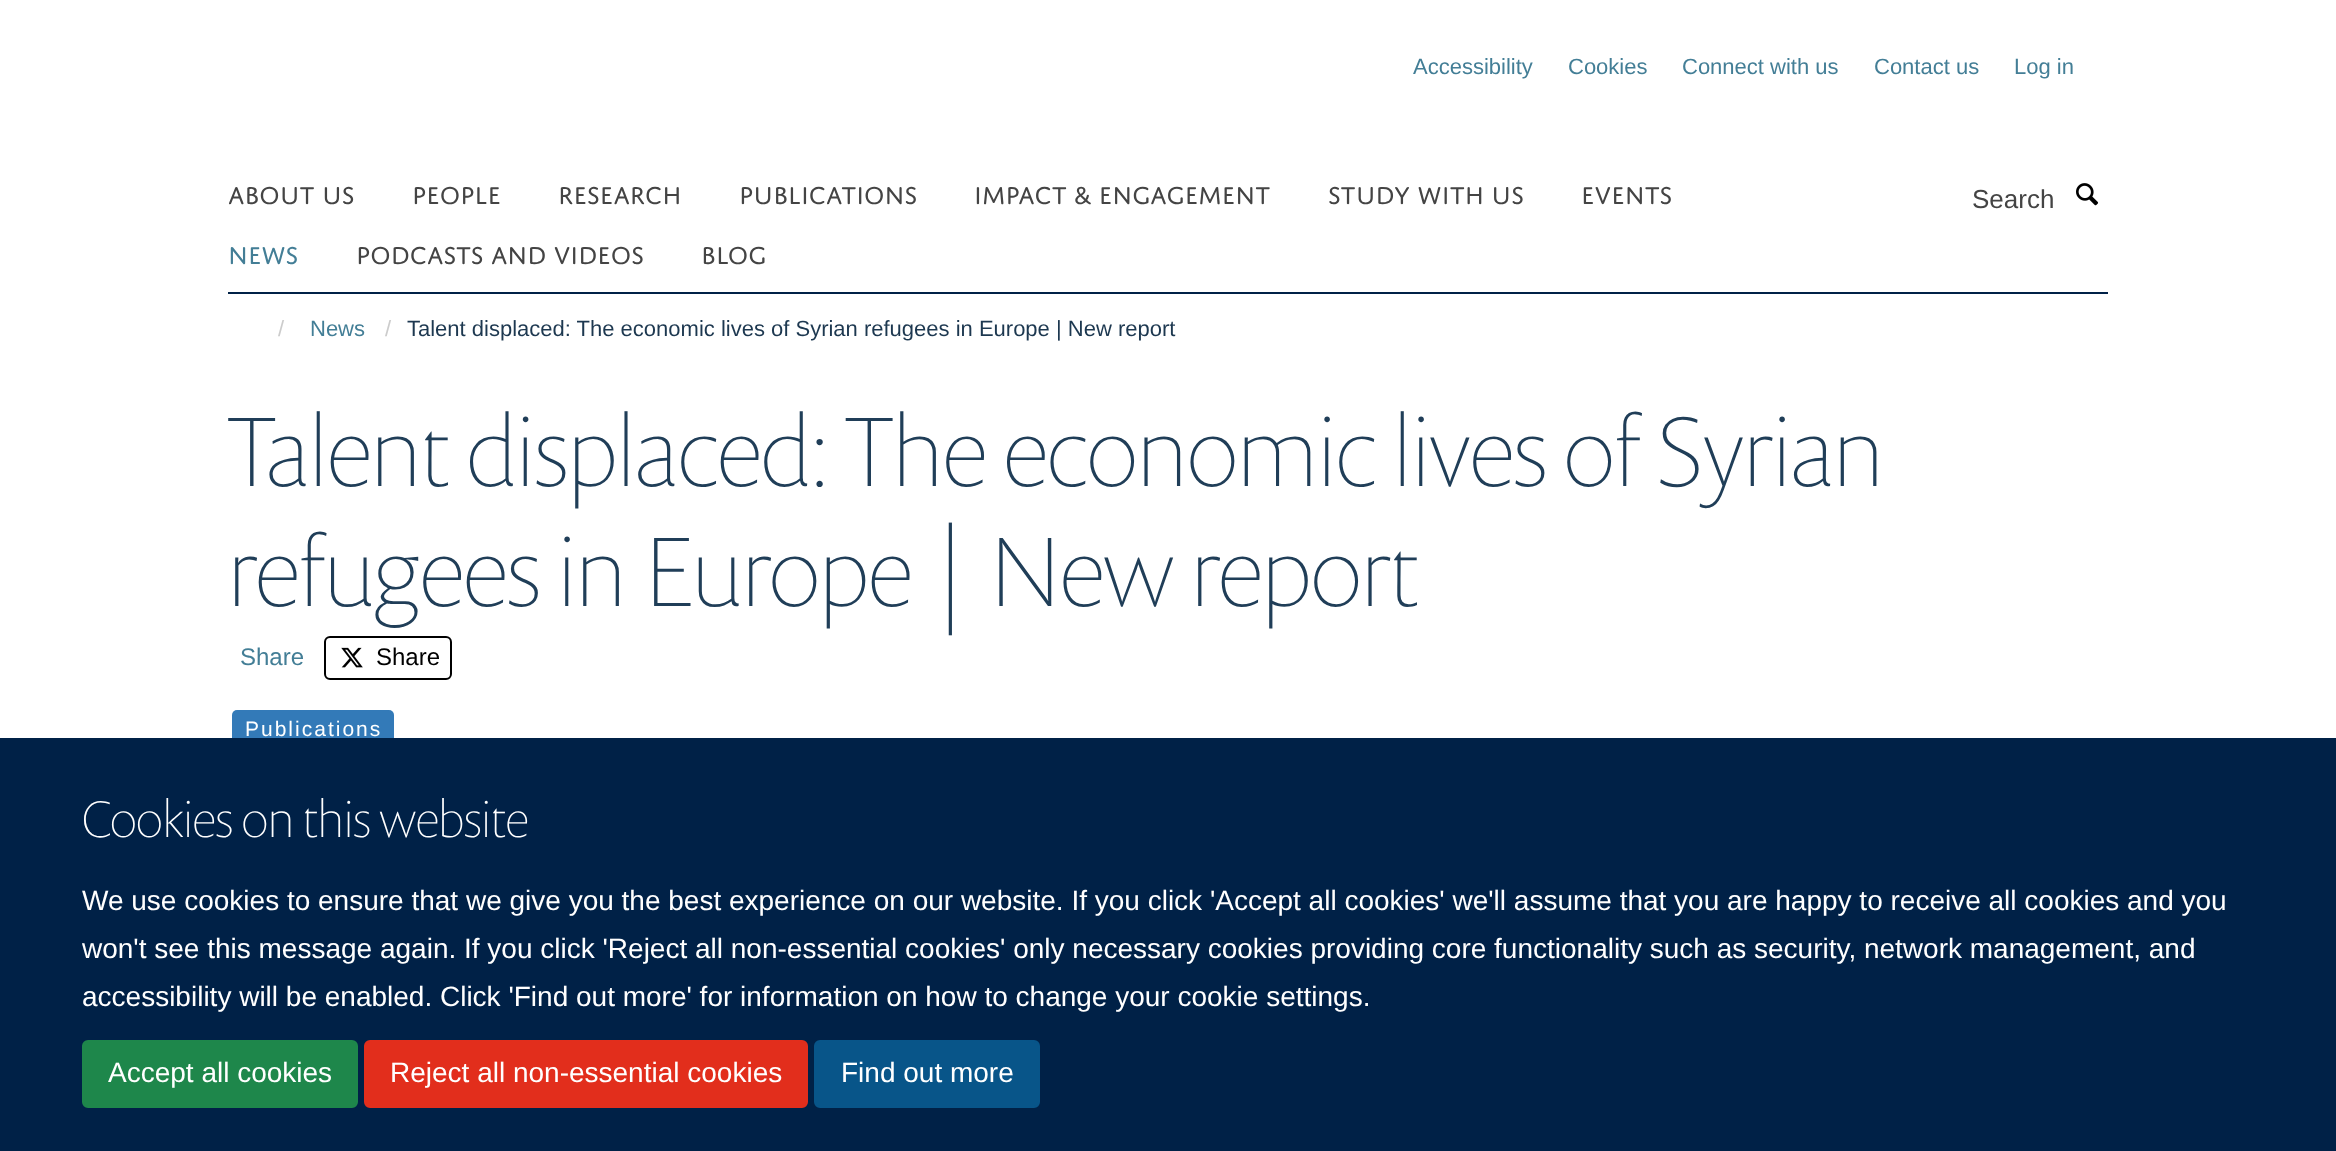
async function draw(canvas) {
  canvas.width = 2336;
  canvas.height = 1151;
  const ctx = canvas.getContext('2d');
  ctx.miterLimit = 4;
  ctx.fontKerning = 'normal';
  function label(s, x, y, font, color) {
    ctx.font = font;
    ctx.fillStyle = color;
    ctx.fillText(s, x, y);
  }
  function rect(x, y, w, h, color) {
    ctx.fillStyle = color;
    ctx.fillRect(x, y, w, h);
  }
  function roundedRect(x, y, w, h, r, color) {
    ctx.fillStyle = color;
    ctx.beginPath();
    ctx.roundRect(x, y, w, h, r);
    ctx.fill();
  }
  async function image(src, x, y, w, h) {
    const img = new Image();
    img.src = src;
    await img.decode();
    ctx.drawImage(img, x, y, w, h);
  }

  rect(0, 0, 2336, 1151, '#fff');
  label('Accessibility', 1413, 74, '22px Liberation Sans', '#437e96');
  label('Cookies', 1568, 74, '22px Liberation Sans', '#437e96');
  label('Connect with us', 1682, 74, '22px Liberation Sans', '#437e96');
  label('Contact us', 1874, 74, '22px Liberation Sans', '#437e96');
  label('Log in', 2014, 74, '22px Liberation Sans', '#437e96');
  rect(228, 292, 1880, 2, '#002147');
  label('ABOUT US', 228, 204, '26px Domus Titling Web', '#444');
  label('PEOPLE', 412, 204, '26px Domus Titling Web', '#444');
  label('RESEARCH', 558, 204, '26px Domus Titling Web', '#444');
  label('PUBLICATIONS', 739, 204, '26px Domus Titling Web', '#444');
  label('IMPACT & ENGAGEMENT', 974, 204, '26px Domus Titling Web', '#444');
  label('STUDY WITH US', 1328, 204, '26px Domus Titling Web', '#444');
  label('EVENTS', 1581, 204, '26px Domus Titling Web', '#444');
  label('NEWS', 228, 264, '26px Domus Titling Web', '#437e96');
  label('PODCASTS AND VIDEOS', 356, 264, '26px Domus Titling Web', '#444');
  label('BLOG', 701, 264, '26px Domus Titling Web', '#444');
  label('Search', 1972, 208, '26px Liberation Sans', '#444');
  await image('assets/img1.png', 2076, 183, 23, 23);
  label('/', 278, 336, '22px Liberation Sans', '#ccc');
  label('News', 310, 336, '22px Liberation Sans', '#437e96');
  label('/', 385, 336, '22px Liberation Sans', '#ccc');
  label('Talent displaced: The economic lives of Syrian refugees in Europe | New report', 407, 336, '22px Liberation Sans', '#1d3850');
  label('Talent displaced: The economic lives of Syrian', 228, 486, '100 100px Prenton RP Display', '#203e58');
  label('refugees in Europe | New report', 228, 606, '100 100px Prenton RP Display', '#203e58');
  label('Share', 240, 665, '24px Liberation Sans', '#437e96');
  ctx.beginPath();
  ctx.roundRect(325, 637, 126, 42, 5);
  ctx.strokeStyle = '#000';
  ctx.lineWidth = 2;
  ctx.stroke();
  await image('assets/img2.png', 341, 647, 22, 21);
  label('Share', 376, 665, '24px Liberation Sans', '#000');
  roundedRect(232, 710, 162, 40, 5, '#337ab8');
  ctx.letterSpacing = '2px';
  label('Publications', 245, 736, '21px Liberation Sans', '#fff');
  rect(0, 738, 2336, 413, '#002147');
  ctx.letterSpacing = '0px';
  label('Cookies on this website', 82, 837, '100 52px Prenton RP Display', '#fff');
  label('We use cookies to ensure that we give you the best experience on our website. If you click \'Accept all cookies\' we\'ll assume that you are happy to receive all cookies and you', 82, 910, '28px Liberation Sans', '#fff');
  label('won\'t see this message again. If you click \'Reject all non-essential cookies\' only necessary cookies providing core functionality such as security, network management, and', 82, 958, '28px Liberation Sans', '#fff');
  label('accessibility will be enabled. Click \'Find out more\' for information on how to change your cookie settings.', 82, 1006, '28px Liberation Sans', '#fff');
  ctx.fillStyle = '#1e874b';
  ctx.beginPath();
  ctx.roundRect(83, 1041, 274, 66, 5);
  ctx.fill();
  ctx.strokeStyle = '#1e874b';
  ctx.stroke();
  label('Accept all cookies', 108, 1082, '28px Liberation Sans', '#fff');
  ctx.fillStyle = '#e22e1c';
  ctx.beginPath();
  ctx.roundRect(365, 1041, 442, 66, 5);
  ctx.fill();
  ctx.strokeStyle = '#e22e1c';
  ctx.stroke();
  label('Reject all non-essential cookies', 390, 1082, '28px Liberation Sans', '#fff');
  ctx.fillStyle = '#085589';
  ctx.beginPath();
  ctx.roundRect(815, 1041, 224, 66, 5);
  ctx.fill();
  ctx.strokeStyle = '#085589';
  ctx.stroke();
  label('Find out more', 841, 1082, '28px Liberation Sans', '#fff');
}

draw(document.querySelector('canvas'));
